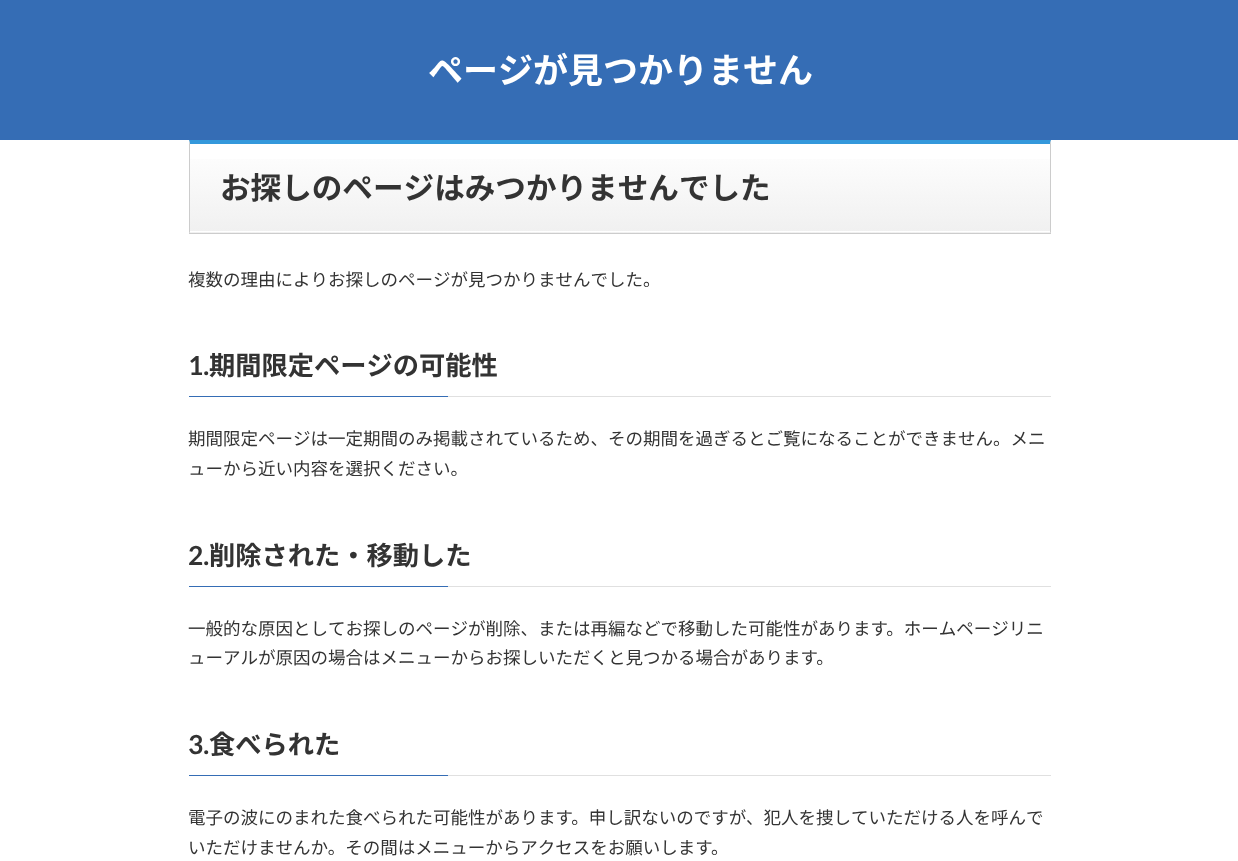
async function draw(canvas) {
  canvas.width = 1238;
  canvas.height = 861;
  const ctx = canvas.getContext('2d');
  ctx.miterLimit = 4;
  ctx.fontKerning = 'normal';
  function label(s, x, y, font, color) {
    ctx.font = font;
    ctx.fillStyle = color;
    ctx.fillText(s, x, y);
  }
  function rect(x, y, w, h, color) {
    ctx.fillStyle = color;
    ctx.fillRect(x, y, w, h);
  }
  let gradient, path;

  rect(0, 0, 1238, 861, '#fff');
  rect(0, 0, 1238, 140, '#356db5');
  label('ページが見つかりません', 428, 83, 'bold 35px Noto Sans JP', '#fff');
  gradient = ctx.createLinearGradient(620, 144, 620, 233);
  gradient.addColorStop(0, '#fff');
  gradient.addColorStop(1, '#f0f0f0');
  ctx.fillStyle = gradient;
  ctx.fillRect(190, 159, 860, 74);
  rect(190, 231, 860, 1, '#fff');
  ctx.fillStyle = '#3498db';
  path = new Path2D('M189 140H1051L1050 144H190Z');
  ctx.fill(path);
  ctx.fillStyle = '#ccc';
  path = new Path2D('M1051 140V234L1050 232V144Z');
  ctx.fill(path);
  rect(189, 233, 862, 1, '#ccc');
  path = new Path2D('M189 234V140L190 144V232Z');
  ctx.fill(path);
  label('お探しのページはみつかりませんでした', 220, 199, 'bold 30.6px Noto Sans JP', '#333');
  label('複数の理由によりお探しのページが見つかりませんでした。', 188, 286, '17.5px Noto Sans JP', '#333');
  rect(448, 396, 603, 1, '#e0e0e0');
  label('1.', 188, 375, 'bold 26.25px Lato', '#333');
  label('期間限定ページの可能性', 209, 375, 'bold 26.25px Noto Sans JP', '#333');
  rect(189, 396, 259, 1, '#356db5');
  label('期間限定ページは一定期間のみ掲載されているため、その期間を過ぎるとご覧になることができません。メニ', 188, 445, '17.5px Noto Sans JP', '#333');
  label('ューから近い内容を選択ください。', 188, 475, '17.5px Noto Sans JP', '#333');
  rect(448, 586, 603, 1, '#e0e0e0');
  label('2.', 188, 565, 'bold 26.25px Lato', '#333');
  label('削除された・移動した', 209, 565, 'bold 26.25px Noto Sans JP', '#333');
  rect(189, 586, 259, 1, '#356db5');
  label('一般的な原因としてお探しのページが削除、または再編などで移動した可能性があります。ホームページリニ', 188, 635, '17.5px Noto Sans JP', '#333');
  label('ューアルが原因の場合はメニューからお探しいただくと見つかる場合があります。', 188, 664, '17.5px Noto Sans JP', '#333');
  rect(448, 775, 603, 1, '#e0e0e0');
  label('3.', 188, 754, 'bold 26.25px Lato', '#333');
  label('食べられた', 209, 754, 'bold 26.25px Noto Sans JP', '#333');
  rect(189, 775, 259, 1, '#356db5');
  label('電子の波にのまれた食べられた可能性があります。申し訳ないのですが、犯人を捜していただける人を呼んで', 188, 824, '17.5px Noto Sans JP', '#333');
  label('いただけませんか。その間はメニューからアクセスをお願いします。', 188, 854, '17.5px Noto Sans JP', '#333');
}

draw(document.querySelector('canvas'));
